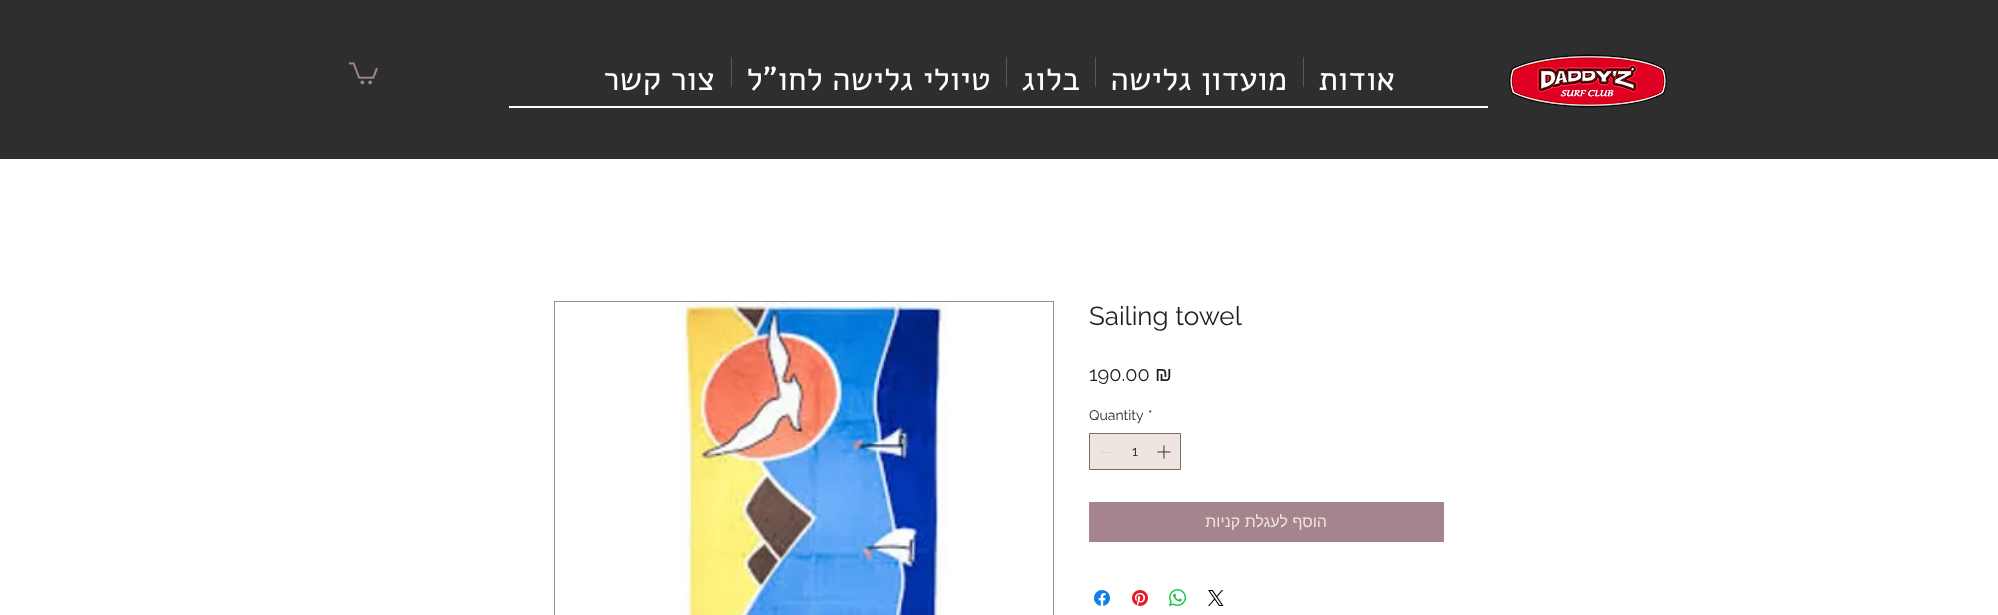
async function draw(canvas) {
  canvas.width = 1998;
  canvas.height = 615;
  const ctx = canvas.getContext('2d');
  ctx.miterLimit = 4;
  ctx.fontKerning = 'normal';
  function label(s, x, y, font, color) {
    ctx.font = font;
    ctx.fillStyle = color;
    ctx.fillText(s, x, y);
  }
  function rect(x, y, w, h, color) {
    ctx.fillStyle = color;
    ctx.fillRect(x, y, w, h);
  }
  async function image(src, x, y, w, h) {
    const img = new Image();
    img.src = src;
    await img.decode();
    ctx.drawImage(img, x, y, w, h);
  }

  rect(0, 0, 1998, 615, '#fff');
  rect(0, 0, 1998, 159, '#2f2e2e');
  await image('assets/img1.png', 1509, 54, 158, 54);
  rect(1303, 57, 1, 30, '#595858');
  ctx.direction = 'rtl';
  label('אודות', 1395, 90, '33px Alef', '#fff');
  rect(1095, 57, 1, 30, '#595858');
  label('מועדון גלישה', 1287, 90, '33px Alef', '#fff');
  rect(1006, 57, 1, 30, '#595858');
  label('בלוג', 1080, 90, '33px Alef', '#fff');
  rect(731, 57, 1, 30, '#595858');
  label('טיולי גלישה לחו"ל', 991, 90, '33px Alef', '#fff');
  label('צור קשר', 715, 90, '33px Alef', '#fff');
  await image('assets/img2.png', 349, 62, 29, 23);
  rect(509, 106, 979, 2, '#fff');
  ctx.direction = 'ltr';
  label('Sailing towel', 1089, 325, '26px Raleway', '#251e1b');
  label('₪', 1155, 381, '20px Liberation Sans', '#251e1b');
  label('190.00', 1089, 381, '20px Raleway', '#251e1b');
  label('*', 1148, 420, '14px Raleway', '#251e1b');
  label('Quantity', 1089, 420, '14px Raleway', '#251e1b');
  ctx.fillStyle = '#eee4e0';
  ctx.beginPath();
  ctx.rect(1089.5, 433.5, 91, 36);
  ctx.fill();
  ctx.strokeStyle = '#756d6a';
  ctx.stroke();
  await image('assets/img3.png', 1157, 445, 14, 14);
  label('1', 1132, 456, '14px Raleway', '#251e1b');
  rect(1101, 452, 13, 1, '#dbd6d4');
  rect(1089, 502, 355, 40, '#a5848d');
  ctx.direction = 'rtl';
  label('הוסף לעגלת קניות', 1327, 527, '16px Liberation Sans', '#eee4e0');
  await image('assets/img4.png', 1208, 590, 16, 16);
  await image('assets/img5.png', 1169, 589, 17, 17);
  await image('assets/img6.png', 1132, 590, 16, 16);
  await image('assets/img7.png', 1094, 590, 16, 16);
  ctx.strokeStyle = '#9e908a';
  ctx.strokeRect(554.5, 301.5, 499, 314);
  await image('assets/img8.png', 681, 302, 266, 313);
}

draw(document.querySelector('canvas'));
